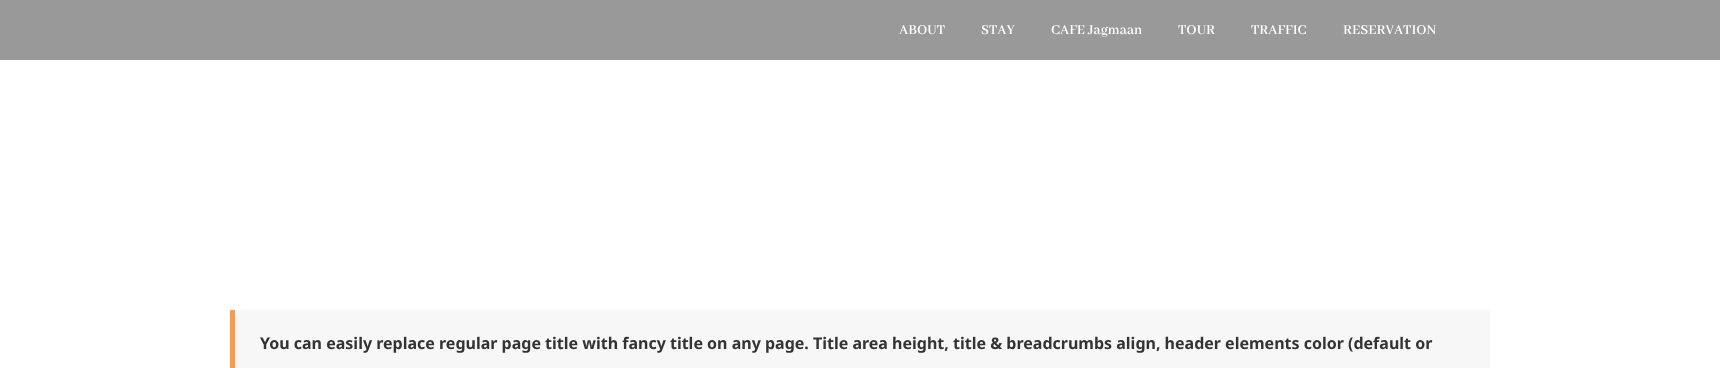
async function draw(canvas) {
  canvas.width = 1720;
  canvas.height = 368;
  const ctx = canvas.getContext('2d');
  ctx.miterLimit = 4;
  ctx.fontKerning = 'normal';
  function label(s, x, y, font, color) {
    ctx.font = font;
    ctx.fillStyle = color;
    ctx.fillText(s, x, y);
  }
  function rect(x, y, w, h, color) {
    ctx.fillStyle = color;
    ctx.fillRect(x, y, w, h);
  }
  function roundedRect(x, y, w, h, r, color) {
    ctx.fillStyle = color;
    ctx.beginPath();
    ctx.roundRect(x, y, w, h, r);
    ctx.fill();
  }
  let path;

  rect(0, 0, 1720, 368, '#fff');
  rect(0, 0, 1720, 60, '#999');
  label('ABOUT', 899, 34, '600 15px Abhaya Libre SemiBold', '#fff');
  label('STAY', 981, 34, '600 15px Abhaya Libre SemiBold', '#fff');
  label('CAFE Jagmaan', 1051, 34, '600 15px Abhaya Libre SemiBold', '#fff');
  label('TOUR', 1178, 34, '600 15px Abhaya Libre SemiBold', '#fff');
  label('TRAFFIC', 1251, 34, '600 15px Abhaya Libre SemiBold', '#fff');
  label('RESERVATION', 1343, 34, '600 15px Abhaya Libre SemiBold', '#fff');
  roundedRect(230, 310, 1260, 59, 1, '#f7f7f7');
  ctx.fillStyle = '#fd9a44';
  path = new Path2D('M231 310H235V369H231C230.5 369 230 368.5 230 368V311C230 310.5 230.5 310 231 310Z');
  ctx.fill(path);
  label('You can easily replace regular page title with fancy title on any page. Title area height, title & breadcrumbs align, header elements color (default or', 260, 349, 'bold 16px Noto Sans', '#333');
}

draw(document.querySelector('canvas'));
